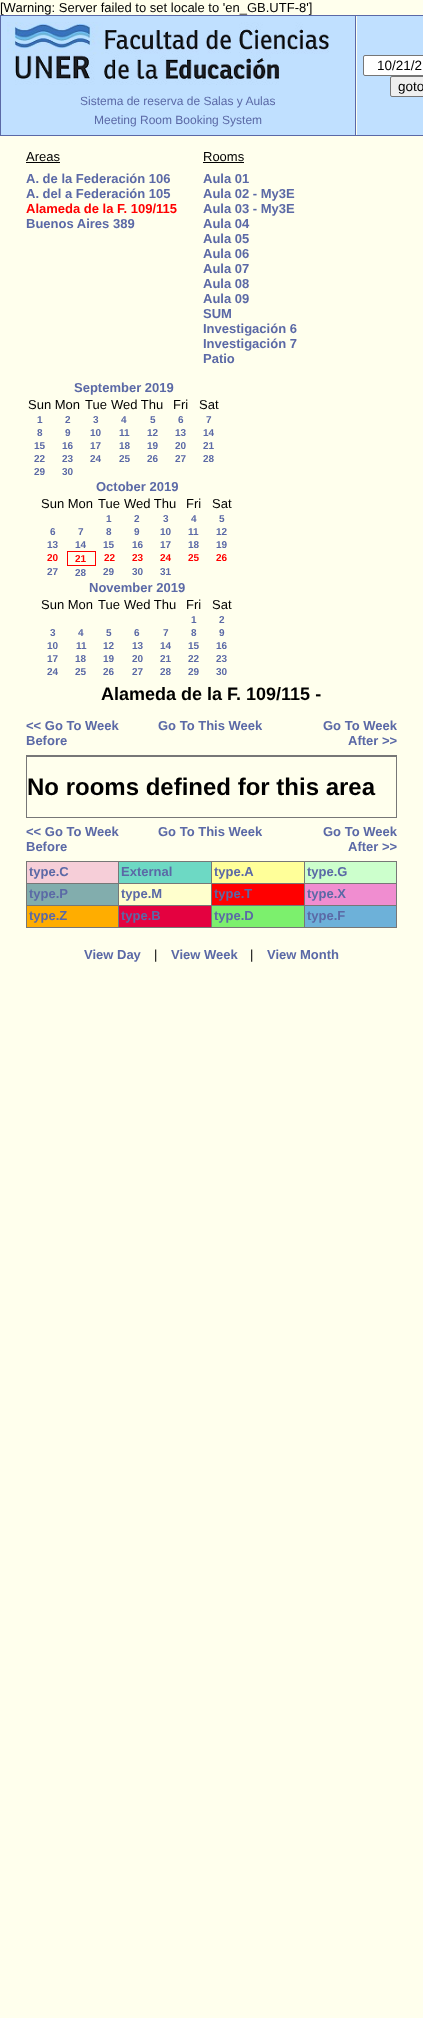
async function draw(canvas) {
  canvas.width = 423;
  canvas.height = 2018;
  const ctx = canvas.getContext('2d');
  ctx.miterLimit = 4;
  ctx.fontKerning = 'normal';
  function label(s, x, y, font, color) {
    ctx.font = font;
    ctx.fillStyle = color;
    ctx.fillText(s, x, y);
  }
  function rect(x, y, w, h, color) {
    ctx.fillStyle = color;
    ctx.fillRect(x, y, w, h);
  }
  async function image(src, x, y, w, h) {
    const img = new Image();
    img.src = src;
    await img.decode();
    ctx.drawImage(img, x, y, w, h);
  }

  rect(0, 0, 423, 2018, '#ffffed');
  label('[Warning: Server failed to set locale to \'en_GB.UTF-8\']', 0, 12, '13px Liberation Sans', '#000');
  rect(0, 15, 423, 1, '#5b69a6');
  rect(0, 135, 423, 1, '#5b69a6');
  rect(0, 15, 1, 121, '#5b69a6');
  rect(357, 16, 66, 119, '#c0e0ff');
  rect(355, 15, 1, 121, '#5b69a6');
  ctx.fillStyle = '#fff';
  ctx.beginPath();
  ctx.roundRect(363.5, 55.5, 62, 20, 1.5);
  ctx.fill();
  ctx.strokeStyle = '#767676';
  ctx.stroke();
  label('10/21/2', 377, 70, '13.5px Liberation Sans', '#000');
  ctx.fillStyle = '#efefef';
  ctx.beginPath();
  ctx.roundRect(390.5, 76.5, 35, 20, 1.5);
  ctx.fill();
  ctx.stroke();
  label('goto', 398, 91, '13.5px Liberation Sans', '#000');
  rect(1, 16, 354, 119, '#c0e0ff');
  await image('assets/img1.png', 7, 22, 322, 63);
  label('Sistema de reserva de Salas y Aulas', 80, 105, '12px Liberation Sans', '#5b69a6');
  label('Meeting Room Booking System', 94, 124, '12px Liberation Sans', '#5b69a6');
  label('Areas', 26, 161, '13px Liberation Sans', '#000');
  rect(26, 162, 34, 1, '#000');
  label('A. de la Federación 106', 26, 183, 'bold 13px Liberation Sans', '#5b69a6');
  label('A. del a Federación 105', 26, 198, 'bold 13px Liberation Sans', '#5b69a6');
  label('Alameda de la F. 109/115', 26, 213, 'bold 13px Liberation Sans', '#f00');
  label('Buenos Aires 389', 26, 228, 'bold 13px Liberation Sans', '#5b69a6');
  label('Rooms', 203, 161, '13px Liberation Sans', '#000');
  rect(203, 162, 41, 1, '#000');
  label('Aula 01', 203, 183, 'bold 13px Liberation Sans', '#5b69a6');
  label('Aula 02 - My3E', 203, 198, 'bold 13px Liberation Sans', '#5b69a6');
  label('Aula 03 - My3E', 203, 213, 'bold 13px Liberation Sans', '#5b69a6');
  label('Aula 04', 203, 228, 'bold 13px Liberation Sans', '#5b69a6');
  label('Aula 05', 203, 243, 'bold 13px Liberation Sans', '#5b69a6');
  label('Aula 06', 203, 258, 'bold 13px Liberation Sans', '#5b69a6');
  label('Aula 07', 203, 273, 'bold 13px Liberation Sans', '#5b69a6');
  label('Aula 08', 203, 288, 'bold 13px Liberation Sans', '#5b69a6');
  label('Aula 09', 203, 303, 'bold 13px Liberation Sans', '#5b69a6');
  label('SUM', 203, 318, 'bold 13px Liberation Sans', '#5b69a6');
  label('Investigación 6', 203, 333, 'bold 13px Liberation Sans', '#5b69a6');
  label('Investigación 7', 203, 348, 'bold 13px Liberation Sans', '#5b69a6');
  label('Patio', 203, 363, 'bold 13px Liberation Sans', '#5b69a6');
  label('September 2019', 74, 392, 'bold 13px Liberation Sans', '#5b69a6');
  label('Sun Mon', 28, 409, '13px Liberation Sans', '#000');
  label('Tue', 85, 409, '13px Liberation Sans', '#000');
  label('Wed Thu', 111, 409, '13px Liberation Sans', '#000');
  label('Fri', 173, 409, '13px Liberation Sans', '#000');
  label('Sat', 199, 409, '13px Liberation Sans', '#000');
  label('1', 37, 423, 'bold 10px Liberation Sans', '#5b69a6');
  label('2', 65, 423, 'bold 10px Liberation Sans', '#5b69a6');
  label('3', 93, 423, 'bold 10px Liberation Sans', '#5b69a6');
  label('4', 121, 423, 'bold 10px Liberation Sans', '#5b69a6');
  label('5', 150, 423, 'bold 10px Liberation Sans', '#5b69a6');
  label('6', 178, 423, 'bold 10px Liberation Sans', '#5b69a6');
  label('7', 206, 423, 'bold 10px Liberation Sans', '#5b69a6');
  label('8', 37, 436, 'bold 10px Liberation Sans', '#5b69a6');
  label('9', 65, 436, 'bold 10px Liberation Sans', '#5b69a6');
  label('10', 90, 436, 'bold 10px Liberation Sans', '#5b69a6');
  label('11', 119, 436, 'bold 10px Liberation Sans', '#5b69a6');
  label('12', 147, 436, 'bold 10px Liberation Sans', '#5b69a6');
  label('13', 175, 436, 'bold 10px Liberation Sans', '#5b69a6');
  label('14', 203, 436, 'bold 10px Liberation Sans', '#5b69a6');
  label('15', 34, 449, 'bold 10px Liberation Sans', '#5b69a6');
  label('16', 62, 449, 'bold 10px Liberation Sans', '#5b69a6');
  label('17', 90, 449, 'bold 10px Liberation Sans', '#5b69a6');
  label('18', 119, 449, 'bold 10px Liberation Sans', '#5b69a6');
  label('19', 147, 449, 'bold 10px Liberation Sans', '#5b69a6');
  label('20', 175, 449, 'bold 10px Liberation Sans', '#5b69a6');
  label('21', 203, 449, 'bold 10px Liberation Sans', '#5b69a6');
  label('22', 34, 462, 'bold 10px Liberation Sans', '#5b69a6');
  label('23', 62, 462, 'bold 10px Liberation Sans', '#5b69a6');
  label('24', 90, 462, 'bold 10px Liberation Sans', '#5b69a6');
  label('25', 119, 462, 'bold 10px Liberation Sans', '#5b69a6');
  label('26', 147, 462, 'bold 10px Liberation Sans', '#5b69a6');
  label('27', 175, 462, 'bold 10px Liberation Sans', '#5b69a6');
  label('28', 203, 462, 'bold 10px Liberation Sans', '#5b69a6');
  label('29', 34, 475, 'bold 10px Liberation Sans', '#5b69a6');
  label('30', 62, 475, 'bold 10px Liberation Sans', '#5b69a6');
  label('October 2019', 96, 491, 'bold 13px Liberation Sans', '#5b69a6');
  label('Sun Mon', 41, 508, '13px Liberation Sans', '#000');
  label('Tue', 98, 508, '13px Liberation Sans', '#000');
  label('Wed Thu', 124, 508, '13px Liberation Sans', '#000');
  label('Fri', 186, 508, '13px Liberation Sans', '#000');
  label('Sat', 212, 508, '13px Liberation Sans', '#000');
  label('1', 106, 522, 'bold 10px Liberation Sans', '#5b69a6');
  label('2', 134, 522, 'bold 10px Liberation Sans', '#5b69a6');
  label('3', 163, 522, 'bold 10px Liberation Sans', '#5b69a6');
  label('4', 191, 522, 'bold 10px Liberation Sans', '#5b69a6');
  label('5', 219, 522, 'bold 10px Liberation Sans', '#5b69a6');
  label('6', 50, 535, 'bold 10px Liberation Sans', '#5b69a6');
  label('7', 78, 535, 'bold 10px Liberation Sans', '#5b69a6');
  label('8', 106, 535, 'bold 10px Liberation Sans', '#5b69a6');
  label('9', 134, 535, 'bold 10px Liberation Sans', '#5b69a6');
  label('10', 160, 535, 'bold 10px Liberation Sans', '#5b69a6');
  label('11', 188, 535, 'bold 10px Liberation Sans', '#5b69a6');
  label('12', 216, 535, 'bold 10px Liberation Sans', '#5b69a6');
  label('13', 47, 548, 'bold 10px Liberation Sans', '#5b69a6');
  label('14', 75, 548, 'bold 10px Liberation Sans', '#5b69a6');
  label('15', 103, 548, 'bold 10px Liberation Sans', '#5b69a6');
  label('16', 132, 548, 'bold 10px Liberation Sans', '#5b69a6');
  label('17', 160, 548, 'bold 10px Liberation Sans', '#5b69a6');
  label('18', 188, 548, 'bold 10px Liberation Sans', '#5b69a6');
  label('19', 216, 548, 'bold 10px Liberation Sans', '#5b69a6');
  label('20', 47, 561, 'bold 10px Liberation Sans', '#f00');
  rect(67, 551, 29, 1, '#f00');
  rect(95, 551, 1, 15, '#f00');
  rect(67, 565, 29, 1, '#f00');
  rect(67, 551, 1, 15, '#f00');
  label('21', 75, 562, 'bold 10px Liberation Sans', '#f00');
  label('22', 104, 561, 'bold 10px Liberation Sans', '#f00');
  label('23', 132, 561, 'bold 10px Liberation Sans', '#f00');
  label('24', 160, 561, 'bold 10px Liberation Sans', '#f00');
  label('25', 188, 561, 'bold 10px Liberation Sans', '#f00');
  label('26', 216, 561, 'bold 10px Liberation Sans', '#f00');
  label('27', 47, 575, 'bold 10px Liberation Sans', '#5b69a6');
  label('28', 75, 576, 'bold 10px Liberation Sans', '#5b69a6');
  label('29', 103, 575, 'bold 10px Liberation Sans', '#5b69a6');
  label('30', 132, 575, 'bold 10px Liberation Sans', '#5b69a6');
  label('31', 160, 575, 'bold 10px Liberation Sans', '#5b69a6');
  label('November 2019', 89, 592, 'bold 13px Liberation Sans', '#5b69a6');
  label('Sun Mon', 41, 609, '13px Liberation Sans', '#000');
  label('Tue', 98, 609, '13px Liberation Sans', '#000');
  label('Wed Thu', 124, 609, '13px Liberation Sans', '#000');
  label('Fri', 186, 609, '13px Liberation Sans', '#000');
  label('Sat', 212, 609, '13px Liberation Sans', '#000');
  label('1', 191, 623, 'bold 10px Liberation Sans', '#5b69a6');
  label('2', 219, 623, 'bold 10px Liberation Sans', '#5b69a6');
  label('3', 50, 636, 'bold 10px Liberation Sans', '#5b69a6');
  label('4', 78, 636, 'bold 10px Liberation Sans', '#5b69a6');
  label('5', 106, 636, 'bold 10px Liberation Sans', '#5b69a6');
  label('6', 134, 636, 'bold 10px Liberation Sans', '#5b69a6');
  label('7', 163, 636, 'bold 10px Liberation Sans', '#5b69a6');
  label('8', 191, 636, 'bold 10px Liberation Sans', '#5b69a6');
  label('9', 219, 636, 'bold 10px Liberation Sans', '#5b69a6');
  label('10', 47, 649, 'bold 10px Liberation Sans', '#5b69a6');
  label('11', 76, 649, 'bold 10px Liberation Sans', '#5b69a6');
  label('12', 103, 649, 'bold 10px Liberation Sans', '#5b69a6');
  label('13', 132, 649, 'bold 10px Liberation Sans', '#5b69a6');
  label('14', 160, 649, 'bold 10px Liberation Sans', '#5b69a6');
  label('15', 188, 649, 'bold 10px Liberation Sans', '#5b69a6');
  label('16', 216, 649, 'bold 10px Liberation Sans', '#5b69a6');
  label('17', 47, 662, 'bold 10px Liberation Sans', '#5b69a6');
  label('18', 75, 662, 'bold 10px Liberation Sans', '#5b69a6');
  label('19', 103, 662, 'bold 10px Liberation Sans', '#5b69a6');
  label('20', 132, 662, 'bold 10px Liberation Sans', '#5b69a6');
  label('21', 160, 662, 'bold 10px Liberation Sans', '#5b69a6');
  label('22', 188, 662, 'bold 10px Liberation Sans', '#5b69a6');
  label('23', 216, 662, 'bold 10px Liberation Sans', '#5b69a6');
  label('24', 47, 675, 'bold 10px Liberation Sans', '#5b69a6');
  label('25', 75, 675, 'bold 10px Liberation Sans', '#5b69a6');
  label('26', 103, 675, 'bold 10px Liberation Sans', '#5b69a6');
  label('27', 132, 675, 'bold 10px Liberation Sans', '#5b69a6');
  label('28', 160, 675, 'bold 10px Liberation Sans', '#5b69a6');
  label('29', 188, 675, 'bold 10px Liberation Sans', '#5b69a6');
  label('30', 216, 675, 'bold 10px Liberation Sans', '#5b69a6');
  label('Alameda de la F. 109/115 -', 101, 700, 'bold 18px Liberation Sans', '#000');
  label('<< Go To Week', 26, 730, 'bold 13px Liberation Sans', '#5b69a6');
  label('Before', 26, 745, 'bold 13px Liberation Sans', '#5b69a6');
  label('Go To This Week', 158, 730, 'bold 13px Liberation Sans', '#5b69a6');
  label('Go To Week', 323, 730, 'bold 13px Liberation Sans', '#5b69a6');
  label('After >>', 348, 745, 'bold 13px Liberation Sans', '#5b69a6');
  ctx.strokeStyle = '#777';
  ctx.strokeRect(26.5, 755.5, 370, 62);
  rect(27, 756, 369, 1, '#777');
  label('No rooms defined for this area', 27, 795, 'bold 24px Liberation Sans', '#000');
  label('<< Go To Week', 26, 836, 'bold 13px Liberation Sans', '#5b69a6');
  label('Before', 26, 851, 'bold 13px Liberation Sans', '#5b69a6');
  label('Go To This Week', 158, 836, 'bold 13px Liberation Sans', '#5b69a6');
  label('Go To Week', 323, 836, 'bold 13px Liberation Sans', '#5b69a6');
  label('After >>', 348, 851, 'bold 13px Liberation Sans', '#5b69a6');
  rect(27, 862, 91, 21, '#f6ced8');
  rect(304, 861, 93, 1, '#777');
  rect(304, 883, 93, 1, '#777');
  rect(304, 905, 93, 1, '#777');
  rect(396, 905, 1, 23, '#777');
  rect(304, 927, 93, 1, '#777');
  rect(304, 905, 1, 23, '#777');
  rect(211, 905, 94, 1, '#777');
  rect(304, 883, 1, 23, '#777');
  rect(211, 883, 94, 1, '#777');
  rect(304, 861, 1, 23, '#777');
  rect(211, 861, 94, 1, '#777');
  rect(211, 927, 94, 1, '#777');
  rect(211, 905, 1, 23, '#777');
  rect(118, 905, 94, 1, '#777');
  rect(211, 883, 1, 23, '#777');
  rect(118, 883, 94, 1, '#777');
  rect(211, 861, 1, 23, '#777');
  rect(118, 861, 94, 1, '#777');
  rect(118, 927, 94, 1, '#777');
  rect(118, 905, 1, 23, '#777');
  rect(26, 905, 93, 1, '#777');
  rect(118, 883, 1, 23, '#777');
  rect(26, 883, 93, 1, '#777');
  rect(118, 861, 1, 23, '#777');
  rect(26, 861, 93, 1, '#777');
  rect(26, 927, 93, 1, '#777');
  rect(26, 905, 1, 23, '#777');
  rect(26, 883, 1, 23, '#777');
  rect(26, 861, 1, 23, '#777');
  label('type.C', 29, 876, 'bold 13px Liberation Sans', '#5b69a6');
  rect(119, 862, 92, 21, '#6dd9c4');
  label('External', 121, 876, 'bold 13px Liberation Sans', '#5b69a6');
  rect(212, 862, 92, 21, '#ff9');
  label('type.A', 214, 876, 'bold 13px Liberation Sans', '#5b69a6');
  rect(305, 862, 91, 21, '#cfc');
  rect(396, 883, 1, 23, '#777');
  rect(396, 861, 1, 23, '#777');
  label('type.G', 307, 876, 'bold 13px Liberation Sans', '#5b69a6');
  rect(27, 884, 91, 21, '#82adad');
  label('type.P', 29, 898, 'bold 13px Liberation Sans', '#5b69a6');
  rect(119, 884, 92, 21, '#ffffcd');
  label('type.M', 121, 898, 'bold 13px Liberation Sans', '#5b69a6');
  rect(212, 884, 92, 21, '#f00');
  label('type.T', 214, 898, 'bold 13px Liberation Sans', '#5b69a6');
  rect(305, 884, 91, 21, '#f08dd0');
  label('type.X', 307, 898, 'bold 13px Liberation Sans', '#5b69a6');
  rect(27, 906, 91, 21, '#ffad00');
  label('type.Z', 29, 920, 'bold 13px Liberation Sans', '#5b69a6');
  rect(119, 906, 92, 21, '#e40140');
  label('type.B', 121, 920, 'bold 13px Liberation Sans', '#5b69a6');
  rect(212, 906, 92, 21, '#7cf06d');
  label('type.D', 214, 920, 'bold 13px Liberation Sans', '#5b69a6');
  rect(305, 906, 91, 21, '#6db1d9');
  label('type.F', 307, 920, 'bold 13px Liberation Sans', '#5b69a6');
  label('View Day', 84, 959, 'bold 13px Liberation Sans', '#5b69a6');
  label('|', 154, 959, '13px Liberation Sans', '#000');
  label('View Week', 171, 959, 'bold 13px Liberation Sans', '#5b69a6');
  label('|', 250, 959, '13px Liberation Sans', '#000');
  label('View Month', 267, 959, 'bold 13px Liberation Sans', '#5b69a6');
}

draw(document.querySelector('canvas'));
